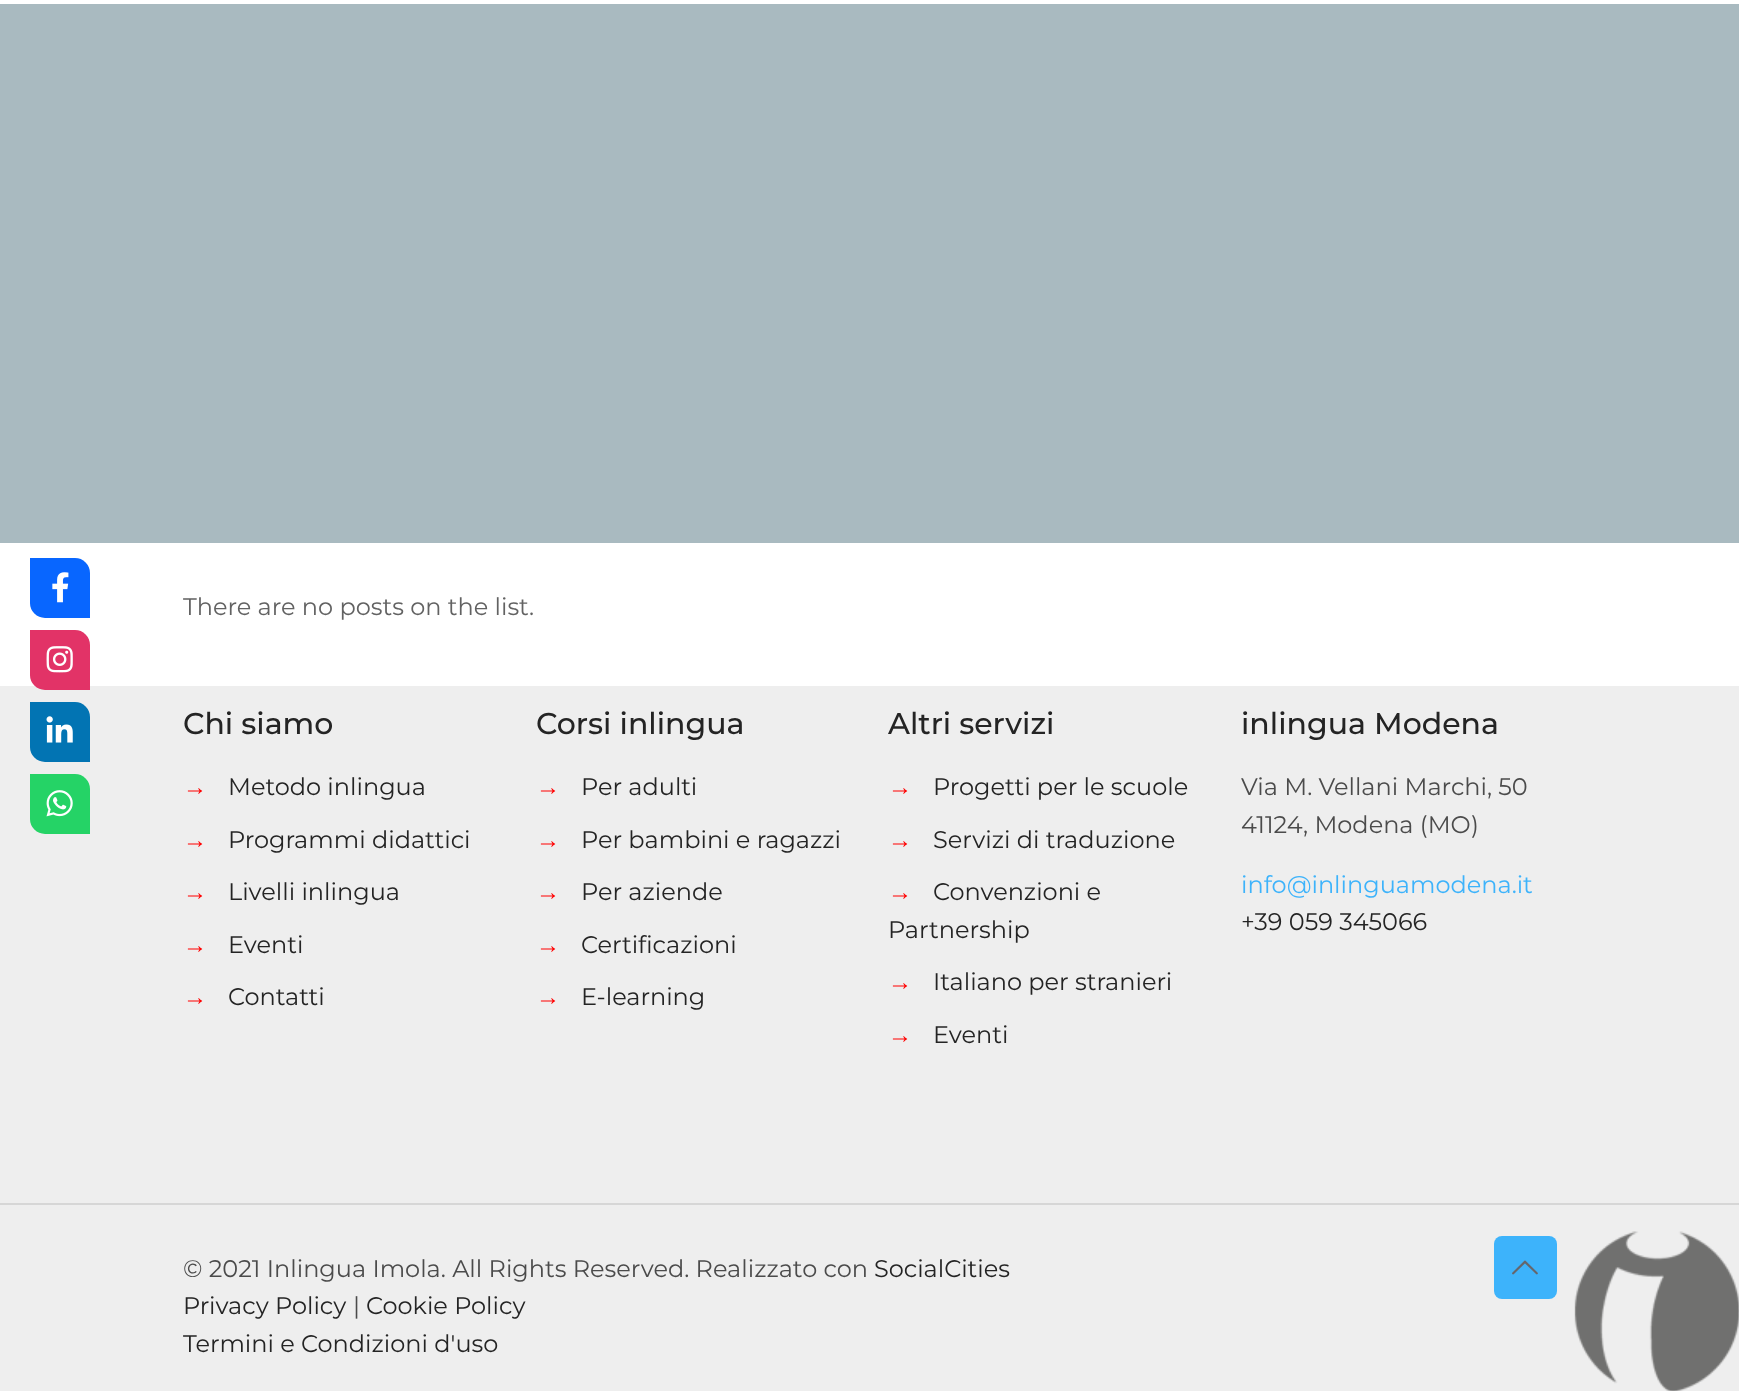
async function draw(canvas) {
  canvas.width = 1739;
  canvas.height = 1391;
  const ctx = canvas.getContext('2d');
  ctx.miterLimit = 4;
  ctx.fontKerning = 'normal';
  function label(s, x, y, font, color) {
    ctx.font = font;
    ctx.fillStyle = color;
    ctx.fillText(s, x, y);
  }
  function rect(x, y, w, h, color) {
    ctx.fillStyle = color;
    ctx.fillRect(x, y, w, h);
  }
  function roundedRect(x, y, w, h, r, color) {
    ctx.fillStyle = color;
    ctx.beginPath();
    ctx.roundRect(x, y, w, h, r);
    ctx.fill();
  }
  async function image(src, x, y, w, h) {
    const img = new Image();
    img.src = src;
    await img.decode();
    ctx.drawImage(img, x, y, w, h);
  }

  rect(0, 0, 1739, 1391, '#eee');
  rect(0, 543, 1739, 143, '#fff');
  ctx.fillStyle = '#0866ff';
  ctx.beginPath();
  ctx.roundRect(30, 558, 60, 60, [0, 15, 0, 15]);
  ctx.fill();
  await image('assets/img1.png', 52, 572, 17, 31);
  ctx.fillStyle = '#e23367';
  ctx.beginPath();
  ctx.roundRect(30, 630, 60, 60, [0, 15, 0, 15]);
  ctx.fill();
  await image('assets/img2.png', 46, 646, 27, 27);
  ctx.fillStyle = '#0274b3';
  ctx.beginPath();
  ctx.roundRect(30, 702, 60, 60, [0, 15, 0, 15]);
  ctx.fill();
  await image('assets/img3.png', 46, 716, 27, 27);
  ctx.fillStyle = '#25d366';
  ctx.beginPath();
  ctx.roundRect(30, 774, 60, 60, [0, 15, 0, 15]);
  ctx.fill();
  await image('assets/img4.png', 46, 790, 27, 27);
  rect(0, 4, 1739, 539, '#a9bac0');
  rect(0, 0, 1739, 4, '#fff');
  label('There are no posts on the list.', 183, 615, '100 24px Montserrat', '#626262');
  await image('assets/img5.png', 1574, 1231, 165, 160);
  label('Chi siamo', 183, 734, '500 30px Montserrat', '#242424');
  label('→', 183, 795, '24px Liberation Sans', '#f00');
  label('Metodo inlingua', 228, 795, '100 24px Montserrat', '#242424');
  label('→', 183, 848, '24px Liberation Sans', '#f00');
  label('Programmi didattici', 228, 848, '100 24px Montserrat', '#242424');
  label('→', 183, 900, '24px Liberation Sans', '#f00');
  label('Livelli inlingua', 228, 900, '100 24px Montserrat', '#242424');
  label('→', 183, 953, '24px Liberation Sans', '#f00');
  label('Eventi', 228, 953, '100 24px Montserrat', '#242424');
  label('→', 183, 1005, '24px Liberation Sans', '#f00');
  label('Contatti', 228, 1005, '100 24px Montserrat', '#242424');
  label('Corsi inlingua', 536, 734, '500 30px Montserrat', '#242424');
  label('→', 536, 795, '24px Liberation Sans', '#f00');
  label('Per adulti', 581, 795, '100 24px Montserrat', '#242424');
  label('→', 536, 848, '24px Liberation Sans', '#f00');
  label('Per bambini e ragazzi', 581, 848, '100 24px Montserrat', '#242424');
  label('→', 536, 900, '24px Liberation Sans', '#f00');
  label('Per aziende', 581, 900, '100 24px Montserrat', '#242424');
  label('→', 536, 953, '24px Liberation Sans', '#f00');
  label('Certificazioni', 581, 953, '100 24px Montserrat', '#242424');
  label('→', 536, 1005, '24px Liberation Sans', '#f00');
  label('E-learning', 581, 1005, '100 24px Montserrat', '#242424');
  label('Altri servizi', 888, 734, '500 30px Montserrat', '#242424');
  label('→', 888, 795, '24px Liberation Sans', '#f00');
  label('Progetti per le scuole', 933, 795, '100 24px Montserrat', '#242424');
  label('→', 888, 848, '24px Liberation Sans', '#f00');
  label('Servizi di traduzione', 933, 848, '100 24px Montserrat', '#242424');
  label('→', 888, 900, '24px Liberation Sans', '#f00');
  label('Convenzioni e', 933, 900, '100 24px Montserrat', '#242424');
  label('Partnership', 888, 938, '100 24px Montserrat', '#242424');
  label('→', 888, 990, '24px Liberation Sans', '#f00');
  label('Italiano per stranieri', 933, 990, '100 24px Montserrat', '#242424');
  label('→', 888, 1043, '24px Liberation Sans', '#f00');
  label('Eventi', 933, 1043, '100 24px Montserrat', '#242424');
  label('inlingua Modena', 1241, 734, '500 30px Montserrat', '#242424');
  label('Via M. Vellani Marchi, 50', 1241, 795, '100 24px Montserrat', '#4b4b4b');
  label('41124, Modena (MO)', 1241, 833, '100 24px Montserrat', '#4b4b4b');
  label('info@inlinguamodena.it', 1241, 893, '100 24px Montserrat', '#3db3fb');
  label('+39 059 345066', 1241, 930, '100 24px Montserrat', '#242424');
  rect(0, 1203, 1739, 2, '#d6d6d6');
  label('© 2021 Inlingua Imola. All Rights Reserved. Realizzato con', 183, 1277, '100 24px Montserrat', '#4b4b4b');
  label('SocialCities', 874, 1277, '100 24px Montserrat', '#242424');
  label('Privacy Policy', 183, 1314, '100 24px Montserrat', '#242424');
  label('|', 353, 1314, '100 24px Montserrat', '#4b4b4b');
  label('Cookie Policy', 366, 1314, '100 24px Montserrat', '#242424');
  label('Termini e Condizioni d\'uso', 183, 1352, '100 24px Montserrat', '#242424');
  roundedRect(1494, 1236, 63, 63, 8, '#3db3fb');
  await image('assets/img6.png', 1512, 1260, 26, 15);
}

draw(document.querySelector('canvas'));
